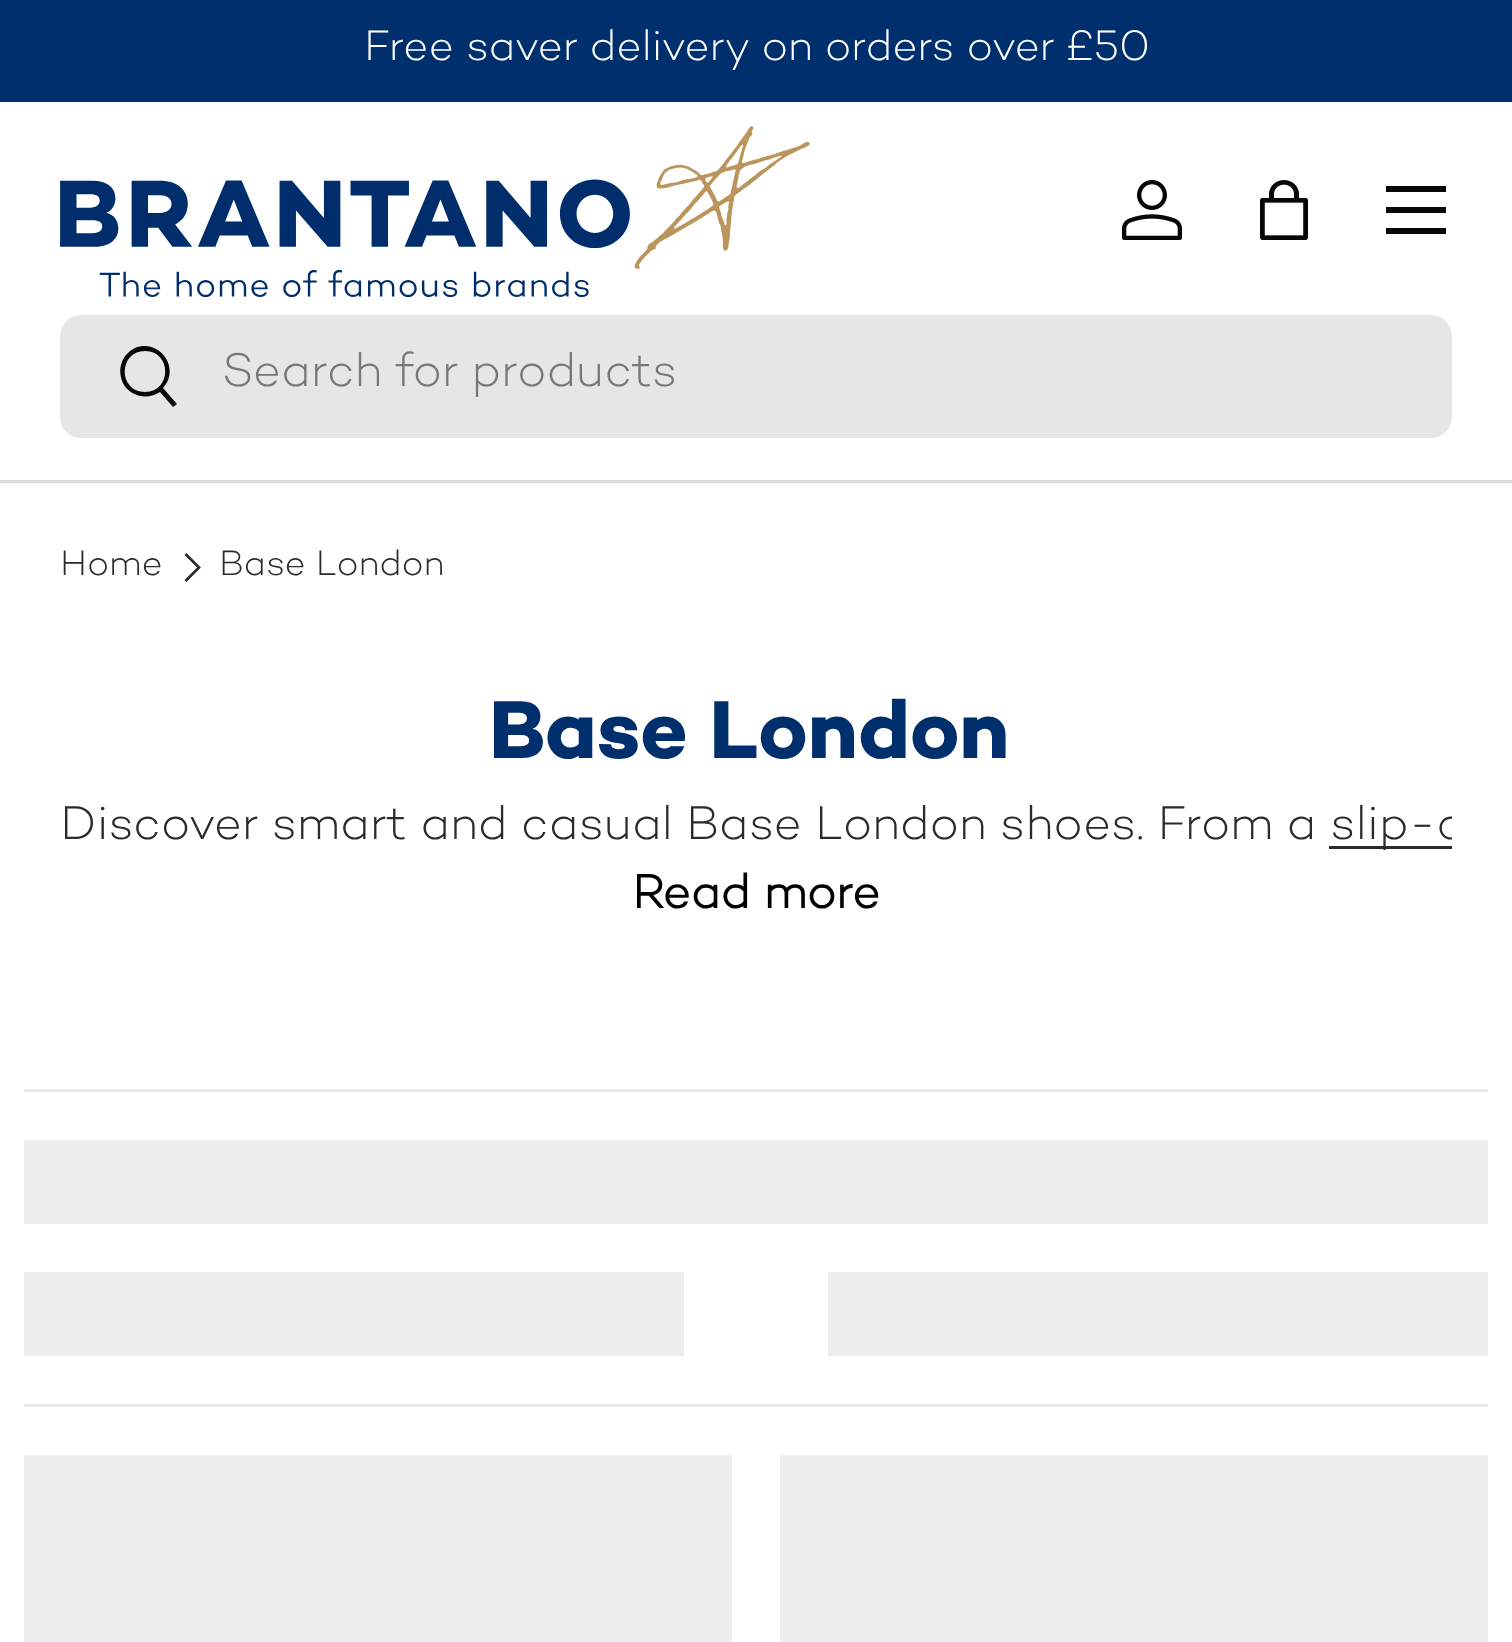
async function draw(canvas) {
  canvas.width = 1512;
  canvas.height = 1642;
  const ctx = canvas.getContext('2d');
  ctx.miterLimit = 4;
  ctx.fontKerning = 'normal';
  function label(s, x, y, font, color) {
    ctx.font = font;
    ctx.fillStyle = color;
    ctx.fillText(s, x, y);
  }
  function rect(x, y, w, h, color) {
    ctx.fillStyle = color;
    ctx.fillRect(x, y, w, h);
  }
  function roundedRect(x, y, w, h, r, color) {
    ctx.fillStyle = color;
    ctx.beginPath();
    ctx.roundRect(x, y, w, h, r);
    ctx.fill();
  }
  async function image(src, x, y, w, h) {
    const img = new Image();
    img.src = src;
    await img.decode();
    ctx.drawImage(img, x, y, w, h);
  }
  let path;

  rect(0, 0, 1512, 1642, '#fff');
  rect(0, 0, 1512, 102, '#002f6e');
  label('Free saver delivery on orders over £50', 364, 60, '300 43.25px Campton', '#fff');
  rect(0, 480, 1512, 3, '#dadada');
  await image('assets/img1.png', 60, 126, 750, 171);
  await image('assets/img2.png', 1122, 180, 60, 60);
  await image('assets/img3.png', 1260, 180, 48, 60);
  rect(1386, 186, 60, 6, '#070707');
  rect(1386, 228, 60, 6, '#070707');
  rect(1386, 207, 60, 6, '#070707');
  roundedRect(60, 315, 1392, 123, 21, '#e6e6e6');
  ctx.fillStyle = '#070707';
  path = new Path2D('M163 388L177 404L173 407L160 392C148 400 132 397 124 385C120 378 119 369 122 362C124 356 129 351 135 348C160 338 181 369 163 388ZM145 392C172 392 172 351 145 351C118 351 118 392 145 392Z');
  ctx.fill(path);
  label('Search for products', 222, 386, '300 48px Campton', '#777');
  label('Home', 60, 575, '300 36px Campton', '#2a2b2a');
  path = new Path2D('M185.5 554L199 567.5L185.5 581');
  ctx.strokeStyle = '#2a2b2a';
  ctx.lineWidth = 2.7;
  ctx.stroke(path);
  label('Base London', 219, 575, '300 36px Campton', '#2a2b2a');
  label('Base London', 489, 758, 'bold 83.5px Campton', '#002f6e');
  label('Discover smart and casual Base London shoes. From a', 60, 839, '300 48px Campton', '#2a2b2a');
  rect(1329, 846, 123, 3, '#2a2b2a');
  ctx.save();
  ctx.beginPath();
  ctx.rect(60, 795, 1392, 69);
  ctx.clip();
  label('slip-o', 1330, 839, '300 48px Campton', '#2a2b2a');
  ctx.restore();
  label('Read more', 632, 908, 'bold 48px "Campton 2"', '#000');
  rect(24, 1089, 1464, 3, '#ebebeb');
  rect(24, 1404, 1464, 3, '#ebebeb');
  rect(24, 1140, 1464, 84, '#eee');
  rect(24, 1272, 660, 84, '#ededed');
  rect(828, 1272, 660, 84, '#ededed');
  rect(24, 1455, 708, 187, '#eee');
  rect(780, 1455, 708, 187, '#eee');
}

draw(document.querySelector('canvas'));
